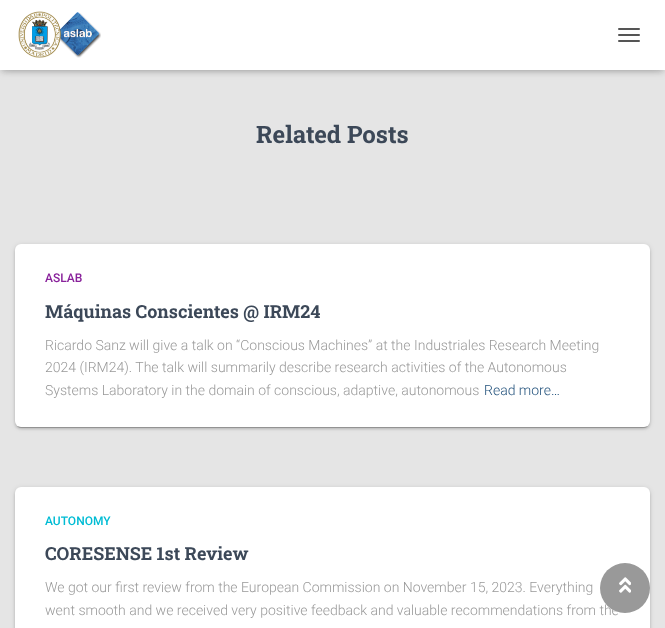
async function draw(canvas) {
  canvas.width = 665;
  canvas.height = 628;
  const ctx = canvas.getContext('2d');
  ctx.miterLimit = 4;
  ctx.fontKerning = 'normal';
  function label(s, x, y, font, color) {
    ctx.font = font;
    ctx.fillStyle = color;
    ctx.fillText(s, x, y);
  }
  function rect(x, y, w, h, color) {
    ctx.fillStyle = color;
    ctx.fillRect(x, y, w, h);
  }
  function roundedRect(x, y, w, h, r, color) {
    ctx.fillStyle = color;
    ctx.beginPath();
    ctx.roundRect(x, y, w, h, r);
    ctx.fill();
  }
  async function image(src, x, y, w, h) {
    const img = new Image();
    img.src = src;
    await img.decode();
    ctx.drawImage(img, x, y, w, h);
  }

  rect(0, 0, 665, 628, '#e5e5e5');
  ctx.fillStyle = '#0000001a';
  ctx.filter = 'blur(2.5px)';
  ctx.beginPath();
  ctx.rect(2, 6, 661, 66);
  ctx.fill();
  ctx.filter = 'none';
  ctx.fillStyle = '#0000001f';
  ctx.filter = 'blur(5px)';
  ctx.beginPath();
  ctx.rect(0, 1, 665, 70);
  ctx.fill();
  ctx.filter = 'none';
  ctx.fillStyle = '#0000006b';
  ctx.filter = 'blur(5px)';
  ctx.beginPath();
  ctx.rect(6, 7, 653, 58);
  ctx.fill();
  ctx.filter = 'none';
  rect(0, 0, 665, 70, '#fff');
  await image('assets/img1.png', 18, 11, 83, 47);
  roundedRect(618, 28, 22, 2, 1, '#555');
  roundedRect(618, 34, 22, 2, 1, '#555');
  roundedRect(618, 40, 22, 2, 1, '#555');
  label('Related Posts', 256, 143, 'bold 24px Roboto Slab', '#3c4858');
  ctx.fillStyle = '#0000001f';
  ctx.filter = 'blur(2.5px)';
  ctx.beginPath();
  ctx.roundRect(15, 245, 635, 183, 6);
  ctx.fill();
  ctx.filter = 'none';
  ctx.fillStyle = '#00000033';
  ctx.filter = 'blur(0.5px)';
  ctx.beginPath();
  ctx.roundRect(17, 249, 631, 179, 4);
  ctx.fill();
  ctx.filter = 'none';
  ctx.fillStyle = '#00000024';
  ctx.filter = 'blur(1px)';
  ctx.beginPath();
  ctx.roundRect(15, 246, 635, 183, 6);
  ctx.fill();
  ctx.filter = 'none';
  roundedRect(15, 244, 635, 183, 6, '#fff');
  label('ASLAB', 45, 282, '500 12px Roboto', '#89229b');
  label('Máquinas Conscientes @ IRM24', 45, 318, 'bold 18px Roboto Slab', '#3c4858');
  label('Ricardo Sanz will give a talk on “Conscious Machines” at the Industriales Research Meeting', 45, 350, '300 14px Roboto', '#999');
  label('2024 (IRM24). The talk will summarily describe research activities of the Autonomous', 45, 372, '300 14px Roboto', '#999');
  label('Systems Laboratory in the domain of conscious, adaptive, autonomous', 45, 395, '300 14px Roboto', '#999');
  label('Read more…', 484, 395, '300 14px Roboto', '#23527c');
  ctx.fillStyle = '#0000001f';
  ctx.filter = 'blur(2.5px)';
  ctx.beginPath();
  ctx.roundRect(15, 488, 635, 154, 6);
  ctx.fill();
  ctx.filter = 'none';
  ctx.fillStyle = '#00000024';
  ctx.filter = 'blur(1px)';
  ctx.beginPath();
  ctx.roundRect(15, 489, 635, 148, 6);
  ctx.fill();
  ctx.filter = 'none';
  roundedRect(15, 487, 635, 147, 6, '#fff');
  label('AUTONOMY', 45, 525, '500 12px Roboto', '#00bcd4');
  label('CORESENSE 1st Review', 45, 560, 'bold 18px Roboto Slab', '#3c4858');
  label('We got our first review from the European Commission on November 15, 2023. Everything', 45, 592, '300 14px Roboto', '#999');
  label('went smooth and we received very positive feedback and valuable recommendations from the', 45, 615, '300 14px Roboto', '#999');
  ctx.beginPath();
  ctx.arc(625, 588, 25, 0, 2 * Math.PI);
  ctx.fill();
  await image('assets/img2.png', 619, 577, 12, 16);
}

draw(document.querySelector('canvas'));
